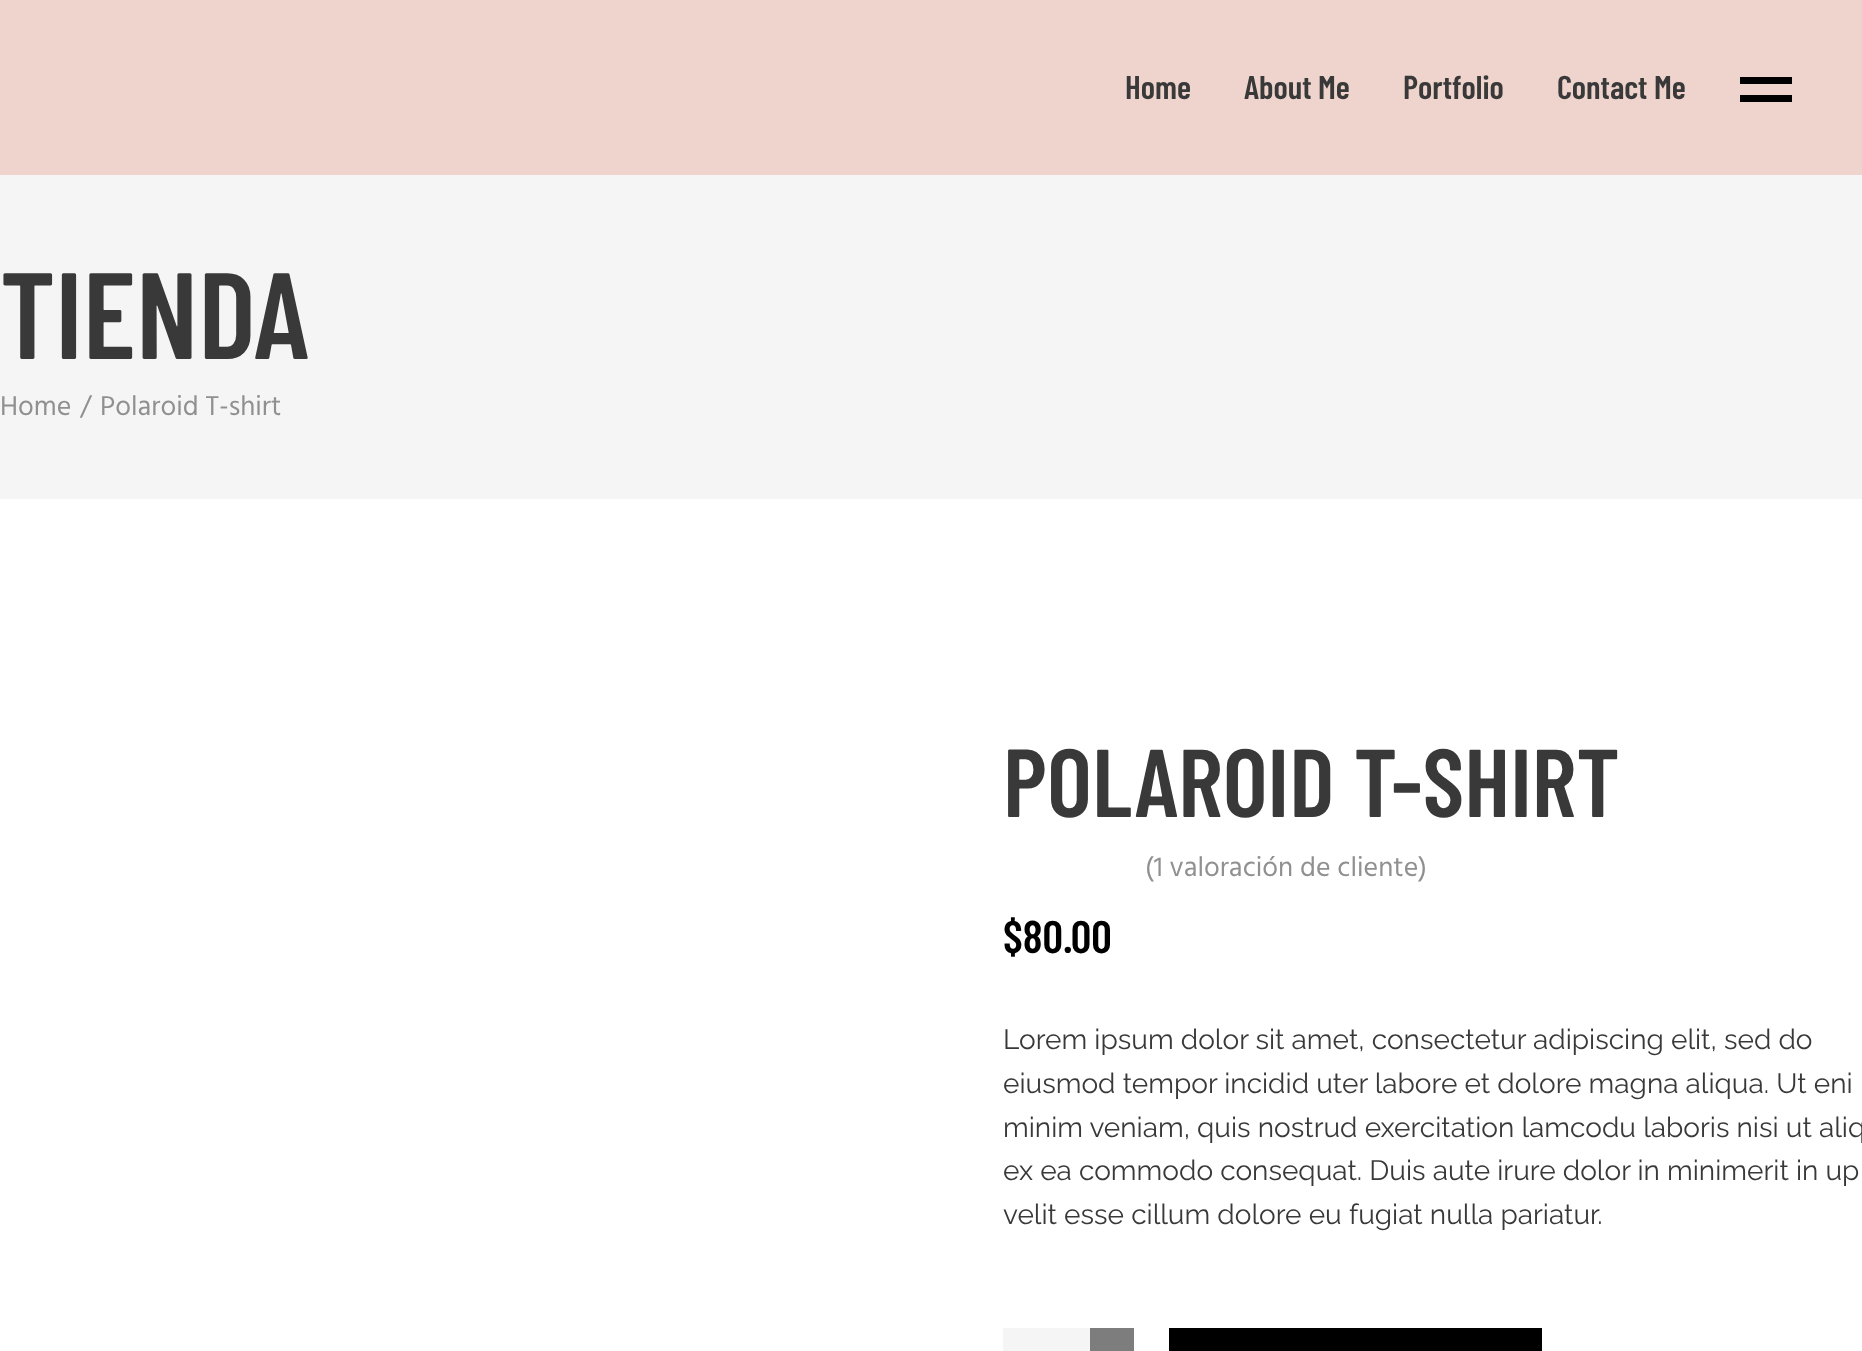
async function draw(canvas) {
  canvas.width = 1862;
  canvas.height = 1351;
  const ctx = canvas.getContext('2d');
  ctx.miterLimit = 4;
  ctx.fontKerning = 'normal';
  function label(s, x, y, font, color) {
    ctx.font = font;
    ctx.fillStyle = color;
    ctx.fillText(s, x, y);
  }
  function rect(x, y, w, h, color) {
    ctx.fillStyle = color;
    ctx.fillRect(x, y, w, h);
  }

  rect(0, 0, 1862, 1351, '#fff');
  rect(0, 0, 1862, 175, '#eed4cd');
  label('Home', 1125, 99, '600 33px Barlow Condensed', '#393939');
  label('About Me', 1244, 99, '600 33px Barlow Condensed', '#393939');
  label('Portfolio', 1403, 99, '600 33px Barlow Condensed', '#393939');
  label('Contact Me', 1557, 99, '600 33px Barlow Condensed', '#393939');
  rect(1740, 77, 52, 7, '#000');
  rect(1740, 95, 52, 7, '#000');
  rect(0, 175, 1862, 324, '#f5f5f5');
  label('TIENDA', 0, 359, '600 122.5px Barlow Condensed', '#393939');
  label('Home', 0, 415, '28px Hind', '#909090');
  label('/', 80, 415, '28px Hind', '#909090');
  label('Polaroid T-shirt', 100, 415, '28px Hind', '#909090');
  label('POLAROID T-SHIRT', 1003, 817, '600 96.25px Barlow Condensed', '#393939');
  label('(1 valoración de cliente)', 1145, 876, '28px Hind', '#909090');
  label('$80.00', 1003, 953, '600 45.5px Barlow Condensed', '#000');
  label('Lorem ipsum dolor sit amet, consectetur adipiscing elit, sed do', 1003, 1049, '28px Raleway', '#393939');
  label('eiusmod tempor incidid uter labore et dolore magna aliqua. Ut eni', 1003, 1093, '28px Raleway', '#393939');
  label('minim veniam, quis nostrud exercitation lamcodu laboris nisi ut aliq', 1003, 1137, '28px Raleway', '#393939');
  label('ex ea commodo consequat. Duis aute irure dolor in minimerit in up', 1003, 1180, '28px Raleway', '#393939');
  label('velit esse cillum dolore eu fugiat nulla pariatur.', 1003, 1224, '28px Raleway', '#393939');
  rect(1003, 1328, 87, 23, '#f5f5f5');
  rect(1090, 1328, 44, 23, '#7d7d7d');
  rect(1169, 1328, 373, 23, '#000');
}

draw(document.querySelector('canvas'));
